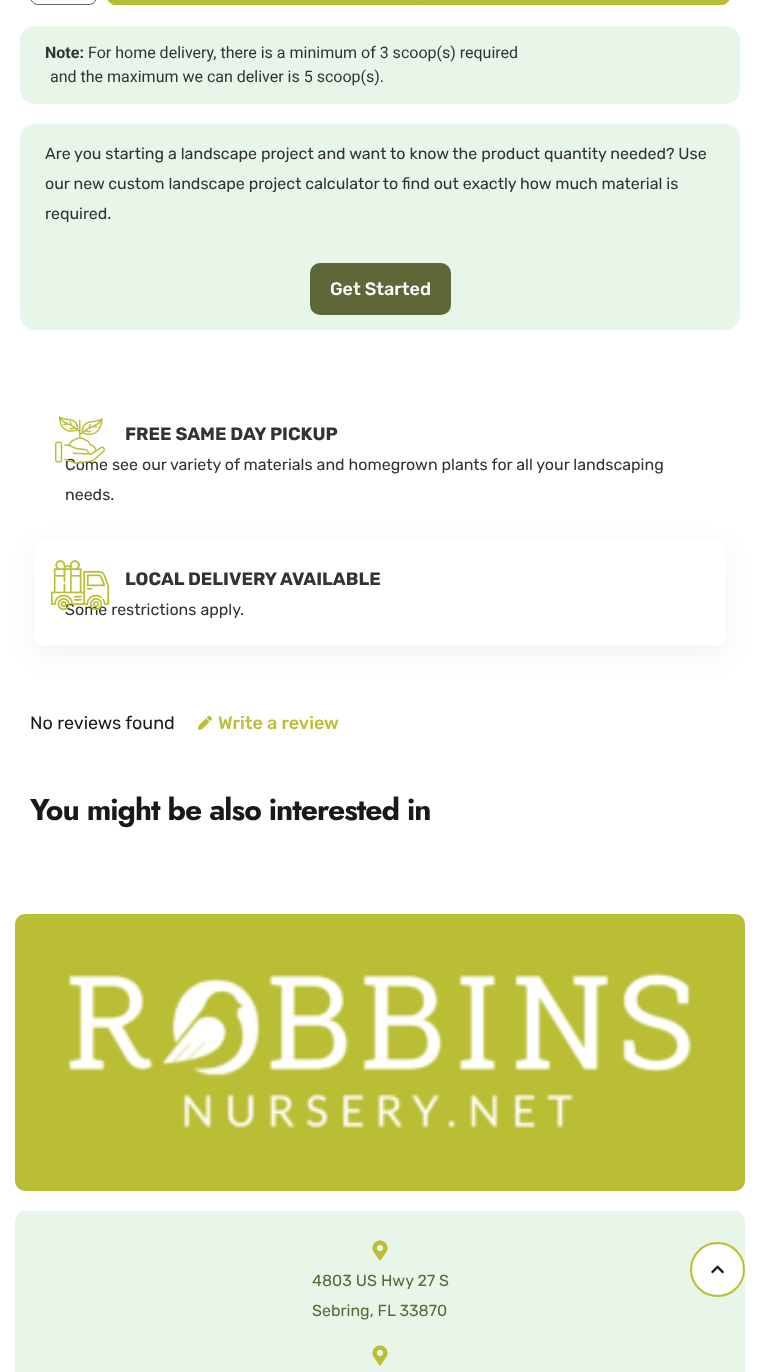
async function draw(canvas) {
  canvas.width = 760;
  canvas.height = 1372;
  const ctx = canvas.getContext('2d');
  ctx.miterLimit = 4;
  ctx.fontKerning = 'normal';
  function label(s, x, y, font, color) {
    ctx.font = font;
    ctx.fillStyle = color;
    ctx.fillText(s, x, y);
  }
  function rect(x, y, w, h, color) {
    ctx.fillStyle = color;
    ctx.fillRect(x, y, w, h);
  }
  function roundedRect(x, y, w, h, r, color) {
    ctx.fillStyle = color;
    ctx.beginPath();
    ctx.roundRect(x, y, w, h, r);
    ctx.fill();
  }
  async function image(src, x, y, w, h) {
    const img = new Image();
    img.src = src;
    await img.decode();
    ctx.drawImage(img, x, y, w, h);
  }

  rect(0, 0, 760, 1372, '#fff');
  ctx.beginPath();
  ctx.roundRect(30.5, -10.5, 66, 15, 9.5);
  ctx.strokeStyle = '#666';
  ctx.stroke();
  ctx.fillStyle = '#babe34';
  ctx.beginPath();
  ctx.roundRect(107.5, -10.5, 622, 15, 9.5);
  ctx.fill();
  ctx.strokeStyle = '#babe34';
  ctx.stroke();
  roundedRect(20, 26, 720, 78, 15, '#e8f5e9');
  label('Note:', 45, 58, 'bold 16px Roboto', '#333');
  label('For home delivery, there is a minimum of 3 scoop(s) required', 88, 58, '16px Roboto', '#333');
  label('and the maximum we can deliver is 5 scoop(s).', 50, 82, '16px Roboto', '#333');
  roundedRect(20, 124, 720, 206, 15, '#e8f5e9');
  label('Are you starting a landscape project and want to know the product quantity needed? Use', 45, 159, '16px Rubik', '#333');
  label('our new custom landscape project calculator to find out exactly how much material is', 45, 189, '16px Rubik', '#333');
  label('required.', 45, 219, '16px Rubik', '#333');
  roundedRect(310, 263, 141, 52, 10, '#5e6738');
  label('Get Started', 330, 295, '500 18px Rubik', '#fff');
  label('Come see our variety of materials and homegrown plants for all your landscaping', 65, 470, '16px Rubik', '#333');
  await image('assets/img1.png', 55, 416, 50, 48);
  label('FREE SAME DAY PICKUP', 125, 440, 'bold 18px Rubik', '#333');
  label('needs.', 65, 500, '16px Rubik', '#333');
  ctx.fillStyle = '#0000000d';
  ctx.filter = 'blur(15px)';
  ctx.beginPath();
  ctx.roundRect(35, 550, 690, 105, 5);
  ctx.fill();
  ctx.filter = 'none';
  roundedRect(35, 540, 690, 105, 5, '#fff');
  label('Some restrictions apply.', 65, 615, '16px Rubik', '#333');
  await image('assets/img2.png', 50, 560, 60, 51);
  label('LOCAL DELIVERY AVAILABLE', 125, 585, 'bold 18px Rubik', '#333');
  label('No reviews found', 30, 729, '18px Rubik', '#191919');
  await image('assets/img3.png', 198, 715, 14, 15);
  label('Write a review', 218, 729, '500 18px Rubik', '#babe34');
  ctx.letterSpacing = '-1px';
  label('You might be also interested in', 30, 820, 'bold 30px Jost', '#191919');
  roundedRect(15, 914, 730, 277, 10, '#babe34');
  await image('assets/img4.png', 67, 972, 625, 156);
  roundedRect(15, 1211, 730, 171, 10, '#e8f5e9');
  await image('assets/img5.png', 372, 1240, 16, 21);
  ctx.letterSpacing = '0px';
  label('4803 US Hwy 27 S', 312, 1286, '16px Rubik', '#5e6738');
  label('Sebring, FL 33870', 312, 1316, '16px Rubik', '#5e6738');
  await image('assets/img5.png', 372, 1345, 16, 21);
  ctx.fillStyle = '#fff';
  ctx.beginPath();
  ctx.arc(717.5, 1269.5, 26.5, 0, 2 * Math.PI);
  ctx.fill();
  ctx.lineWidth = 2;
  ctx.stroke();
  await image('assets/img6.png', 711, 1265, 13, 9);
}

draw(document.querySelector('canvas'));
